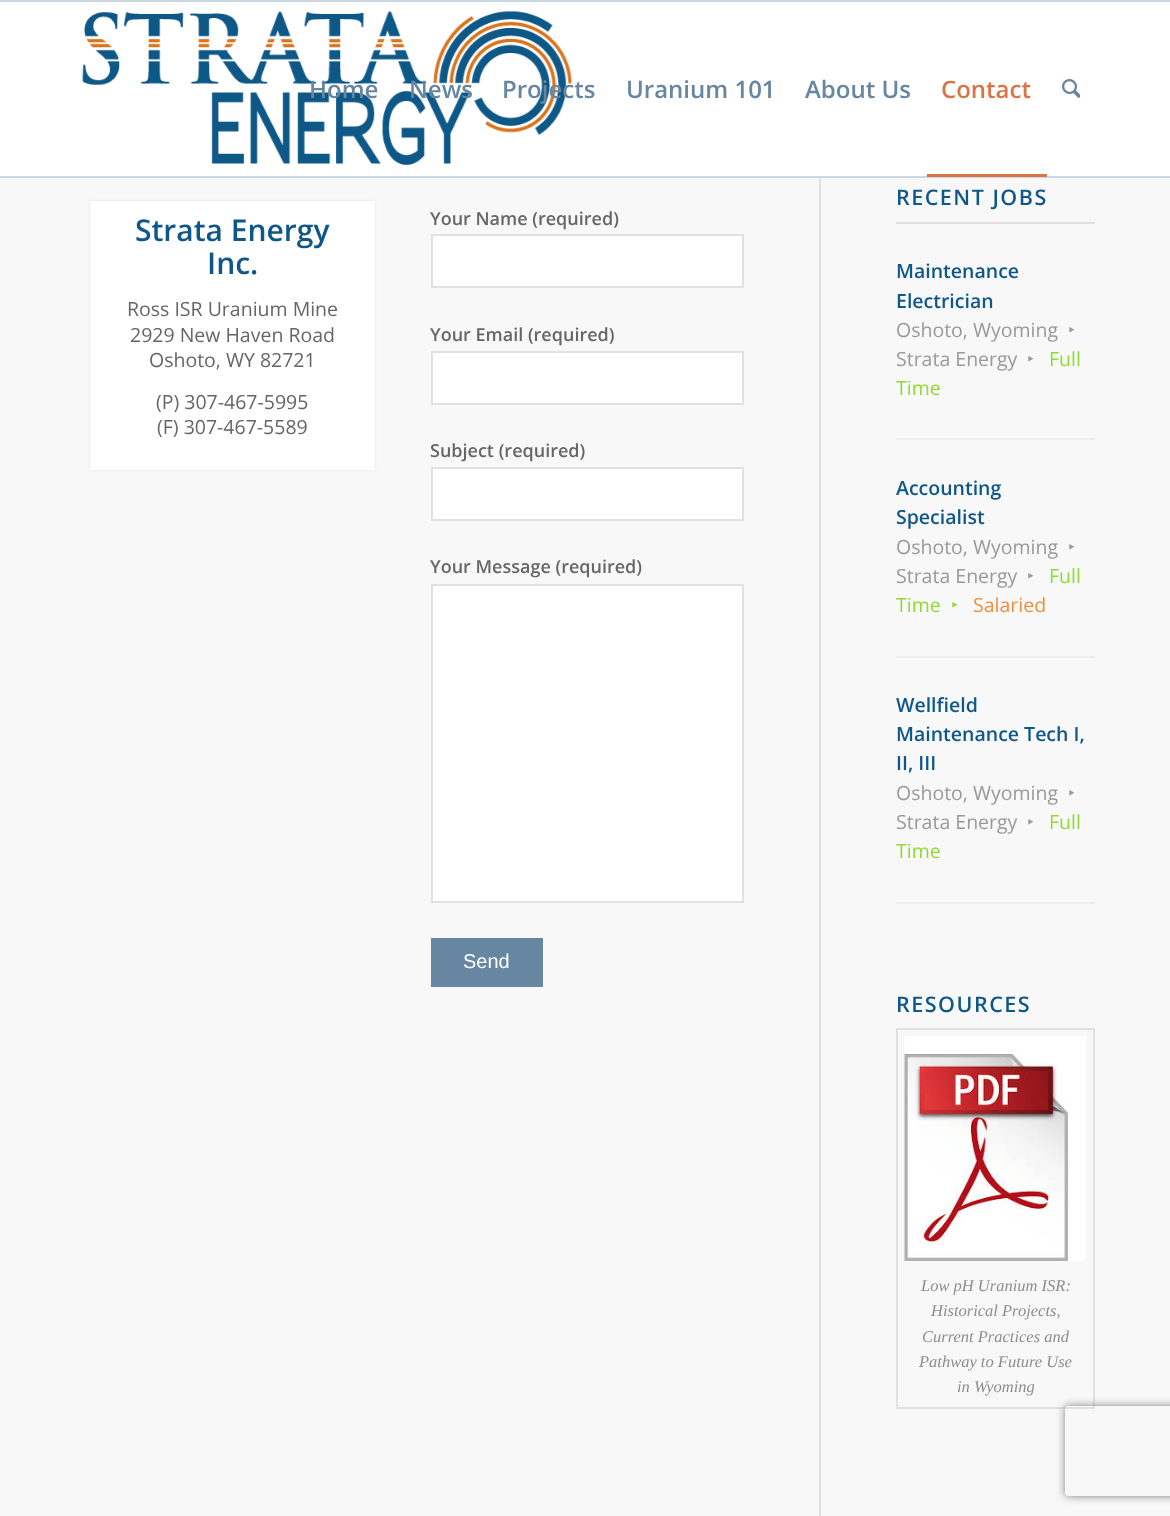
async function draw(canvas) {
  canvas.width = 1170;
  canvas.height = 1516;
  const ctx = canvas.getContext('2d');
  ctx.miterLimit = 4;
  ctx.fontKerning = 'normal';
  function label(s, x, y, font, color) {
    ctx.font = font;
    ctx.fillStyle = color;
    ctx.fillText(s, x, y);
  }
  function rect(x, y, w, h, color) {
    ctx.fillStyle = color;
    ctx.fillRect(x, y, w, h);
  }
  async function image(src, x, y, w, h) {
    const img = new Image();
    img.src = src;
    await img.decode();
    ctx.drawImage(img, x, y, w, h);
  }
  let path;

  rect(0, 0, 1170, 1516, '#f8f8f8');
  rect(819, 171, 2, 1345, '#e1e1e1');
  rect(0, 2, 1170, 174, '#fff');
  rect(0, 0, 1170, 2, '#cad8e3');
  rect(0, 176, 1170, 2, '#cad8e3');
  await image('assets/img1.png', 82, 11, 490, 154);
  label('Home', 309, 98, '600 24px Open Sans', '#6786a1');
  label('News', 409, 98, '600 24px Open Sans', '#6786a1');
  label('Projects', 502, 98, '600 24px Open Sans', '#6786a1');
  label('Uranium 101', 626, 98, '600 24px Open Sans', '#6786a1');
  label('About Us', 805, 98, '600 24px Open Sans', '#6786a1');
  label('Contact', 941, 98, '600 24px Open Sans', '#db7445');
  rect(927, 174, 120, 3, '#db7445');
  await image('assets/img2.png', 1062, 79, 18, 19);
  ctx.fillStyle = '#0000001a';
  ctx.filter = 'blur(1px)';
  ctx.beginPath();
  ctx.rect(90, 201, 285, 269);
  ctx.fill();
  ctx.filter = 'none';
  rect(90, 201, 285, 269, '#fff');
  label('Strata Energy', 135, 241, '600 30px Open Sans', '#0e5788');
  label('Inc.', 207, 274, '600 30px Open Sans', '#0e5788');
  label('Ross ISR Uranium Mine', 127, 316, '19.5px Open Sans', '#666');
  label('2929 New Haven Road', 130, 342, '19.5px Open Sans', '#666');
  label('Oshoto, WY 82721', 149, 367, '19.5px Open Sans', '#666');
  label('(P) 307-467-5995', 156, 409, '19.5px Open Sans', '#666');
  label('(F) 307-467-5589', 157, 434, '19.5px Open Sans', '#666');
  label('Your Name (required)', 430, 225, '600 18px Open Sans', '#666');
  ctx.fillStyle = '#fff';
  ctx.beginPath();
  ctx.rect(432, 235, 311, 52);
  ctx.fill();
  ctx.strokeStyle = '#e1e1e1';
  ctx.lineWidth = 2;
  ctx.stroke();
  label('Your Email (required)', 430, 341, '600 18px Open Sans', '#666');
  ctx.fillStyle = '#fff';
  ctx.beginPath();
  ctx.rect(432, 352, 311, 52);
  ctx.fill();
  ctx.stroke();
  label('Subject (required)', 430, 457, '600 18px Open Sans', '#666');
  ctx.fillStyle = '#fff';
  ctx.beginPath();
  ctx.rect(432, 468, 311, 52);
  ctx.fill();
  ctx.stroke();
  label('Your Message (required)', 430, 573, '600 18px Open Sans', '#666');
  ctx.fillStyle = '#fff';
  ctx.beginPath();
  ctx.rect(432, 585, 311, 317);
  ctx.fill();
  ctx.stroke();
  rect(431, 938, 112, 49, '#6786a1');
  label('Send', 463, 968, '20px Liberation Sans', '#fff');
  ctx.letterSpacing = '1.5px';
  label('RECENT JOBS', 896, 205, '600 21.5px Open Sans', '#0e5788');
  rect(896, 222, 199, 2, '#e1e1e1');
  rect(896, 438, 199, 2, '#eee');
  ctx.letterSpacing = '0px';
  label('Maintenance', 896, 278, '600 19.5px Open Sans', '#0e5788');
  label('Electrician', 896, 308, '600 19.5px Open Sans', '#0e5788');
  label('Oshoto, Wyoming', 896, 337, '19.5px Open Sans', '#999');
  label('‣', 1068, 337, '19.5px Noto Sans', '#999');
  label('Strata Energy', 896, 366, '19.5px Open Sans', '#999');
  label('‣', 1027, 366, '19.5px Noto Sans', '#999');
  label('Full', 1049, 366, '19.5px Open Sans', '#90da36');
  label('Time', 896, 395, '19.5px Open Sans', '#90da36');
  rect(896, 656, 199, 2, '#eee');
  label('Accounting', 896, 495, '600 19.5px Open Sans', '#0e5788');
  label('Specialist', 896, 524, '600 19.5px Open Sans', '#0e5788');
  label('Oshoto, Wyoming', 896, 554, '19.5px Open Sans', '#999');
  label('‣', 1068, 554, '19.5px Noto Sans', '#999');
  label('Strata Energy', 896, 583, '19.5px Open Sans', '#999');
  label('‣', 1027, 583, '19.5px Noto Sans', '#999');
  label('Full', 1049, 583, '19.5px Open Sans', '#90da36');
  label('Time', 896, 612, '19.5px Open Sans', '#90da36');
  label('‣', 951, 612, '19.5px Noto Sans', '#90da36');
  label('Salaried', 973, 612, '19.5px Open Sans', '#f08d3c');
  rect(896, 902, 199, 2, '#eee');
  label('Wellfield', 896, 712, '600 19.5px Open Sans', '#0e5788');
  label('Maintenance Tech I,', 896, 741, '600 19.5px Open Sans', '#0e5788');
  label('II, III', 896, 770, '600 19.5px Open Sans', '#0e5788');
  label('Oshoto, Wyoming', 896, 800, '19.5px Open Sans', '#999');
  label('‣', 1068, 800, '19.5px Noto Sans', '#999');
  label('Strata Energy', 896, 829, '19.5px Open Sans', '#999');
  label('‣', 1027, 829, '19.5px Noto Sans', '#999');
  label('Full', 1049, 829, '19.5px Open Sans', '#90da36');
  label('Time', 896, 858, '19.5px Open Sans', '#90da36');
  ctx.letterSpacing = '1.5px';
  label('RESOURCES', 896, 1012, '600 21.5px Open Sans', '#0e5788');
  ctx.strokeRect(897, 1029, 197, 379);
  await image('assets/img3.png', 904, 1036, 182, 225);
  ctx.letterSpacing = '0px';
  label('Low pH Uranium ISR:', 921, 1291, 'italic 16.5px Liberation Serif', '#8d8d8d');
  label('Historical Projects,', 931, 1316, 'italic 16.5px Liberation Serif', '#8d8d8d');
  label('Current Practices and', 922, 1342, 'italic 16.5px Liberation Serif', '#8d8d8d');
  label('Pathway to Future Use', 919, 1367, 'italic 16.5px Liberation Serif', '#8d8d8d');
  label('in Wyoming', 957, 1392, 'italic 16.5px Liberation Serif', '#8d8d8d');
  ctx.save();
  path = new Path2D('M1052 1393H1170V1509H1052ZM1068 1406H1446C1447.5 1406 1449 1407.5 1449 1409V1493C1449 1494.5 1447.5 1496 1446 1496H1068C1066.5 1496 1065 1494.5 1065 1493V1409C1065 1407.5 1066.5 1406 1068 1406Z');
  ctx.clip(path, 'evenodd');
  ctx.fillStyle = '#808080';
  ctx.filter = 'blur(4px)';
  ctx.beginPath();
  ctx.roundRect(1065, 1406, 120, 90, 3);
  ctx.fill();
  ctx.filter = 'none';
  ctx.restore();
}

draw(document.querySelector('canvas'));
